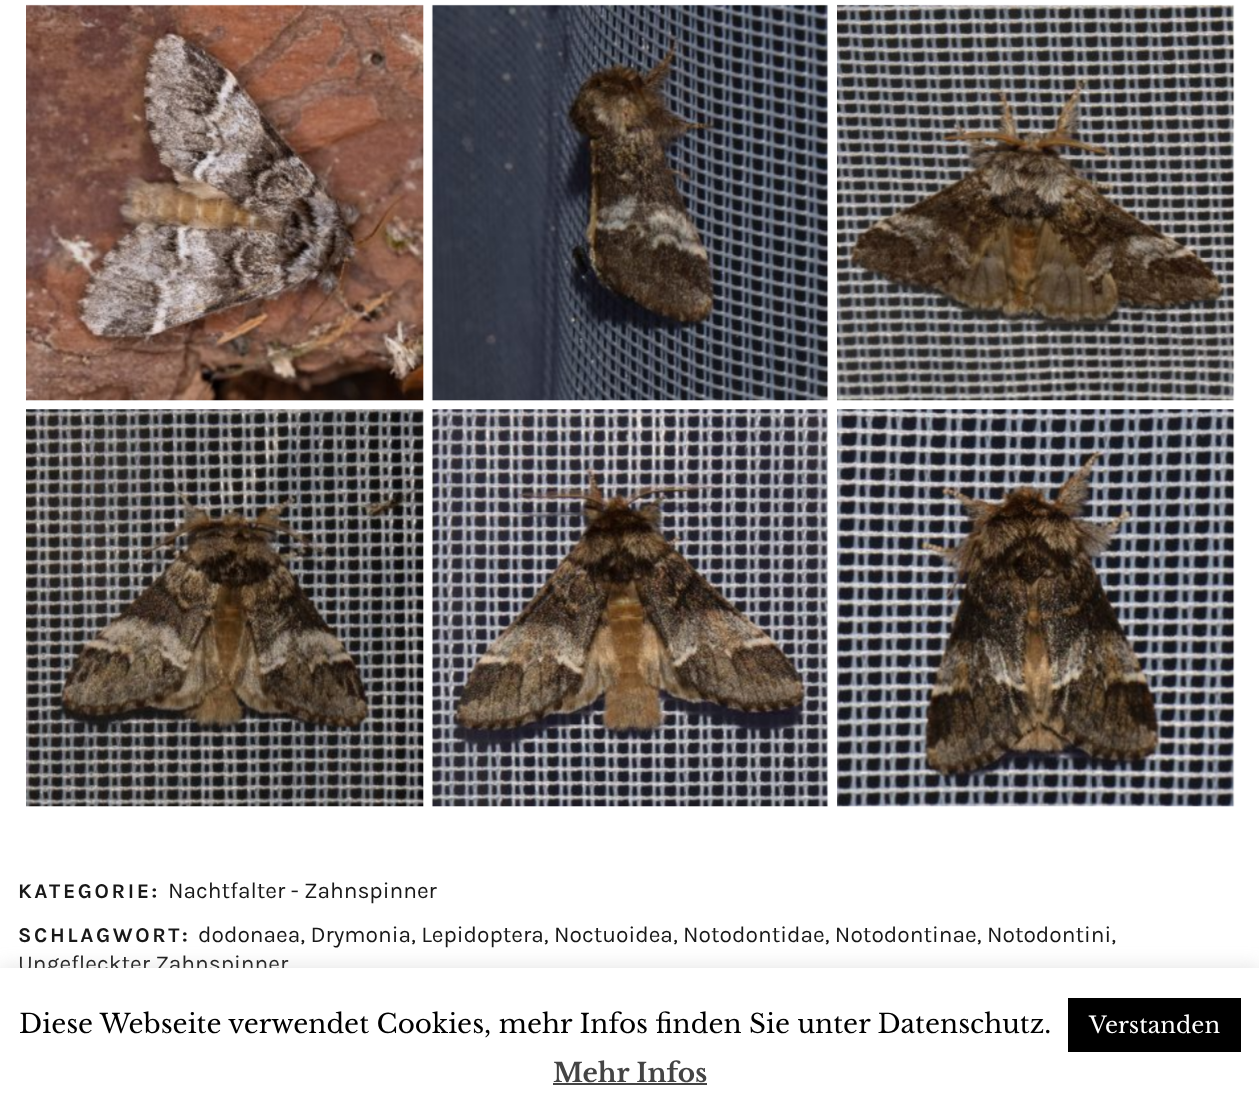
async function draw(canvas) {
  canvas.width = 1259;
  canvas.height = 1109;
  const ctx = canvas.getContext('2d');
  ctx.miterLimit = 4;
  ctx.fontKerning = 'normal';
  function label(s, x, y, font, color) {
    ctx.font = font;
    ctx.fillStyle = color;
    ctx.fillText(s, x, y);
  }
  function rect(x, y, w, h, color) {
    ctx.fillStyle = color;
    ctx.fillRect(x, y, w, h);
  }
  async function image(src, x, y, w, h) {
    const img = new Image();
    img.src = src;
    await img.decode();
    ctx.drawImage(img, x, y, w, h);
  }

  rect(0, 0, 1259, 1109, '#fff');
  await image('assets/img1.png', 26, 4, 398, 397);
  await image('assets/img2.png', 26, 409, 398, 398);
  await image('assets/img3.png', 431, 4, 398, 397);
  await image('assets/img4.png', 431, 409, 398, 398);
  await image('assets/img5.png', 837, 4, 398, 397);
  await image('assets/img6.png', 837, 409, 398, 398);
  ctx.letterSpacing = '2.6px';
  label('KATEGORIE:', 18, 898, 'bold 21px Karla', '#191919');
  ctx.letterSpacing = '0px';
  label('Nachtfalter - Zahnspinner', 168, 898, '22.75px Karla', '#191919');
  ctx.letterSpacing = '2.6px';
  label('SCHLAGWORT:', 18, 942, 'bold 21px Karla', '#191919');
  ctx.letterSpacing = '0px';
  label('dodonaea, Drymonia, Lepidoptera, Noctuoidea, Notodontidae, Notodontinae, Notodontini,', 198, 942, '22.75px Karla', '#191919');
  label('Ungefleckter Zahnspinner', 18, 971, '22.75px Karla', '#191919');
  ctx.fillStyle = '#acabab4d';
  ctx.filter = 'blur(9px)';
  ctx.beginPath();
  ctx.rect(0, 966, 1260, 142);
  ctx.fill();
  ctx.filter = 'none';
  rect(0, 968, 1259, 141, '#fff');
  label('Diese Webseite verwendet Cookies, mehr Infos finden Sie unter Datenschutz.', 19, 1033, '26.25px Libre Baskerville', '#000');
  rect(1068, 998, 173, 54, '#000');
  label('Verstanden', 1089, 1033, '22.75px Libre Baskerville', '#fff');
  label('Mehr Infos', 553, 1082, 'bold 26.25px Libre Baskerville', '#444');
  rect(553, 1083, 154, 2, '#444');
}

draw(document.querySelector('canvas'));
